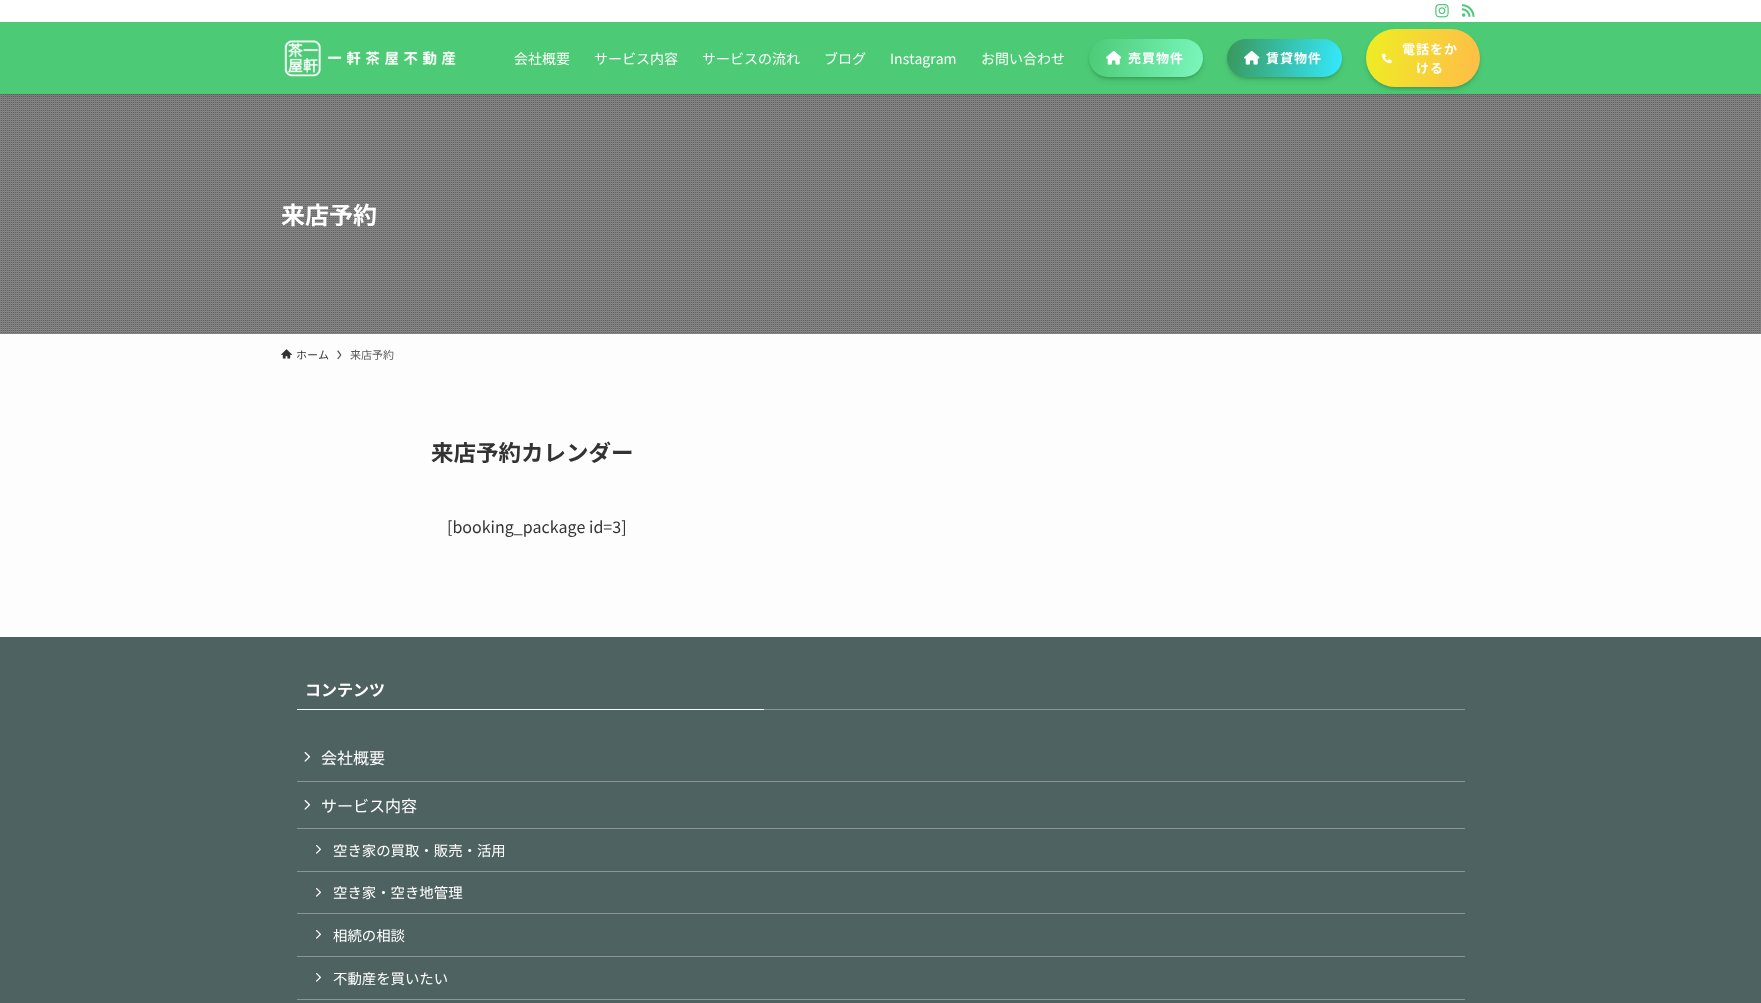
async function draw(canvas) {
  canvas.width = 1761;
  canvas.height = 1003;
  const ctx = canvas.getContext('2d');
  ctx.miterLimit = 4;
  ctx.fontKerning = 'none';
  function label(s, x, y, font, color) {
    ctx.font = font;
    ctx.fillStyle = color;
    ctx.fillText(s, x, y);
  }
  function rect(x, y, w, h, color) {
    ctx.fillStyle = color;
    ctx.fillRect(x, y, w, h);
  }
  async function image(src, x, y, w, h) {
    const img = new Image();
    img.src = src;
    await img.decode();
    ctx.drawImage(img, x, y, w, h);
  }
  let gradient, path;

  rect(0, 0, 1761, 1003, '#fdfdfd');
  rect(0, 94, 1761, 240, '#898989');
  await image('assets/img7.png', 0, 94, 1761, 240);
  ctx.fillStyle = '#0000001f';
  ctx.filter = 'blur(2px)';
  ctx.beginPath();
  ctx.rect(0, 1, 1761, 94);
  ctx.fill();
  ctx.filter = 'none';
  rect(0, 22, 1761, 72, '#4cca75');
  rect(0, 0, 1761, 22, '#fff');
  await image('assets/img1.png', 1435, 4, 14, 14);
  await image('assets/img2.png', 1461, 4, 14, 13);
  await image('assets/img3.png', 284, 40, 172, 37);
  label('会社概要', 514, 64, '14px Noto Sans JP', '#fff');
  label('サービス内容', 594, 64, '14px Noto Sans JP', '#fff');
  label('サービスの流れ', 702, 64, '14px Noto Sans JP', '#fff');
  label('ブログ', 824, 64, '14px Noto Sans JP', '#fff');
  label('Instagram', 890, 64, '14px Noto Sans JP', '#fff');
  label('お問い合わせ', 981, 64, '14px Noto Sans JP', '#fff');
  ctx.fillStyle = '#00000033';
  ctx.filter = 'blur(4px)';
  ctx.beginPath();
  ctx.roundRect(1093, 47, 106, 30, 15);
  ctx.fill();
  ctx.filter = 'none';
  ctx.fillStyle = '#0000001a';
  ctx.filter = 'blur(1px)';
  ctx.beginPath();
  ctx.roundRect(1089, 41, 114, 38, 19);
  ctx.fill();
  ctx.filter = 'none';
  gradient = ctx.createLinearGradient(1087, 48, 1205, 68);
  gradient.addColorStop(0, '#4cca75');
  gradient.addColorStop(1, '#7bf7bd');
  ctx.fillStyle = gradient;
  ctx.beginPath();
  ctx.roundRect(1089, 39, 114, 38, 19);
  ctx.fill();
  await image('assets/img4.png', 1106, 50, 15, 15);
  ctx.letterSpacing = '1px';
  label('売買物件', 1128, 63, 'bold 13px Noto Sans JP', '#fff');
  ctx.fillStyle = '#00000033';
  ctx.filter = 'blur(4px)';
  ctx.beginPath();
  ctx.roundRect(1231, 47, 107, 30, 15);
  ctx.fill();
  ctx.filter = 'none';
  ctx.fillStyle = '#0000001a';
  ctx.filter = 'blur(1px)';
  ctx.beginPath();
  ctx.roundRect(1227, 41, 115, 38, 19);
  ctx.fill();
  ctx.filter = 'none';
  gradient = ctx.createLinearGradient(1225, 48, 1344, 68);
  gradient.addColorStop(0, '#399658');
  gradient.addColorStop(1, '#35eaff');
  ctx.fillStyle = gradient;
  ctx.beginPath();
  ctx.roundRect(1227, 39, 115, 38, 19);
  ctx.fill();
  await image('assets/img5.png', 1244, 50, 16, 15);
  label('賃貸物件', 1266, 63, 'bold 13px Noto Sans JP', '#fff');
  ctx.fillStyle = '#00000033';
  ctx.filter = 'blur(4px)';
  ctx.beginPath();
  ctx.roundRect(1370, 37, 106, 50, 25);
  ctx.fill();
  ctx.filter = 'none';
  ctx.fillStyle = '#0000001a';
  ctx.filter = 'blur(1px)';
  ctx.beginPath();
  ctx.roundRect(1366, 31, 114, 58, 29);
  ctx.fill();
  ctx.filter = 'none';
  gradient = ctx.createLinearGradient(1363, 47, 1483, 69);
  gradient.addColorStop(0, '#ee2');
  gradient.addColorStop(1, '#ffbc49');
  ctx.fillStyle = gradient;
  ctx.beginPath();
  ctx.roundRect(1366, 29, 114, 58, 29);
  ctx.fill();
  await image('assets/img6.png', 1382, 53, 10, 11);
  label('電話をか', 1402, 54, 'bold 13px Noto Sans JP', '#fff');
  label('ける', 1416, 73, 'bold 13px Noto Sans JP', '#fff');
  ctx.letterSpacing = '0px';
  label('来店予約', 281, 224, 'bold 24px Noto Sans JP', '#fff');
  await image('assets/img8.png', 281, 349, 11, 10);
  label('ホーム', 296, 359, '11px Noto Sans JP', '#333');
  ctx.fillStyle = '#5b5b5b';
  path = new Path2D('M338.5 350.5L337 351L340 355L337 359H338.5L341.5 355Z');
  ctx.fill(path);
  label('来店予約', 350, 359, '11px Noto Sans JP', '#5b5b5b');
  label('来店予約カレンダー', 431, 461, 'bold 22.5px Noto Sans JP', '#333');
  label('[booking_package id=3]', 447, 533, '16px Noto Sans JP', '#333');
  rect(0, 637, 1761, 366, '#4e6361');
  label('コンテンツ', 305, 696, 'bold 16px Noto Sans JP', '#fff');
  rect(297, 709, 467, 1, '#fff');
  rect(764, 709, 701, 1, '#8b9594');
  rect(297, 781, 1168, 1, '#8b9594');
  await image('assets/img9.png', 304, 752, 7, 10);
  label('会社概要', 321, 764, '16px Noto Sans JP', '#fff');
  rect(297, 828, 1168, 1, '#8b9594');
  await image('assets/img9.png', 304, 800, 7, 10);
  label('サービス内容', 321, 812, '16px Noto Sans JP', '#fff');
  rect(297, 871, 1168, 1, '#8b9594');
  await image('assets/img10.png', 316, 845, 5, 9);
  label('空き家の買取・販売・活用', 333, 856, '14.4px Noto Sans JP', '#fff');
  rect(297, 913, 1168, 1, '#8b9594');
  await image('assets/img10.png', 316, 888, 5, 9);
  label('空き家・空き地管理', 333, 898, '14.4px Noto Sans JP', '#fff');
  rect(297, 956, 1168, 1, '#8b9594');
  await image('assets/img10.png', 316, 930, 5, 9);
  label('相続の相談', 333, 941, '14.4px Noto Sans JP', '#fff');
  rect(297, 999, 1168, 1, '#8b9594');
  await image('assets/img10.png', 316, 973, 5, 9);
  label('不動産を買いたい', 333, 984, '14.4px Noto Sans JP', '#fff');
}

draw(document.querySelector('canvas'));
